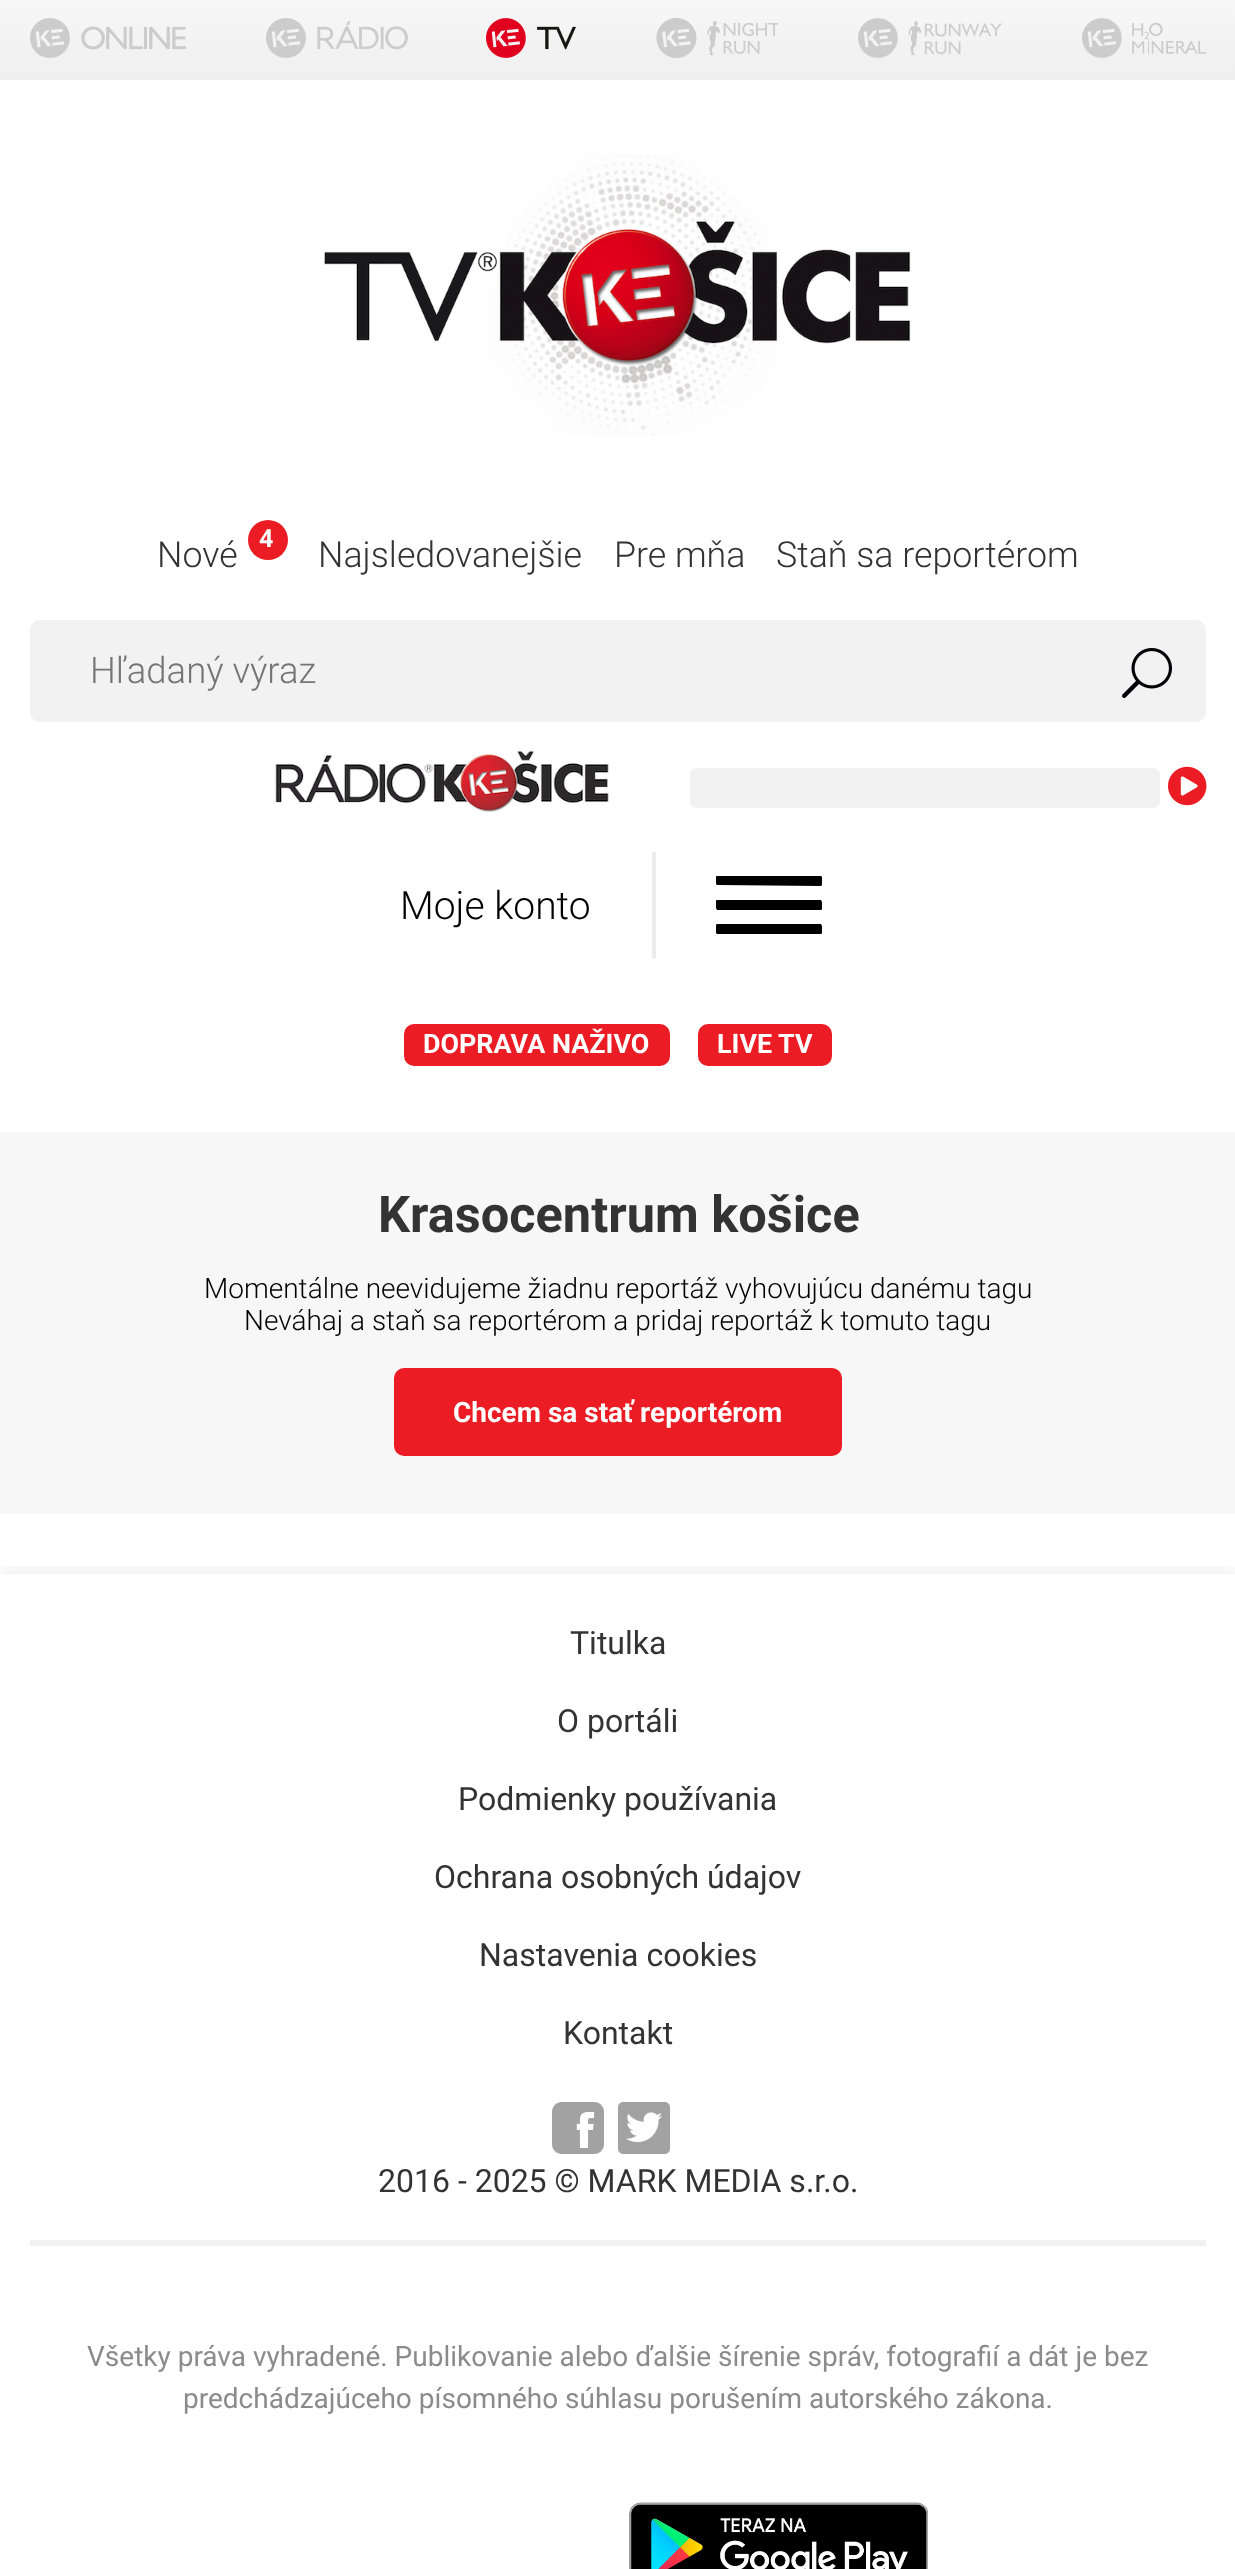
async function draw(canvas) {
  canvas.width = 1235;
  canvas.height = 2569;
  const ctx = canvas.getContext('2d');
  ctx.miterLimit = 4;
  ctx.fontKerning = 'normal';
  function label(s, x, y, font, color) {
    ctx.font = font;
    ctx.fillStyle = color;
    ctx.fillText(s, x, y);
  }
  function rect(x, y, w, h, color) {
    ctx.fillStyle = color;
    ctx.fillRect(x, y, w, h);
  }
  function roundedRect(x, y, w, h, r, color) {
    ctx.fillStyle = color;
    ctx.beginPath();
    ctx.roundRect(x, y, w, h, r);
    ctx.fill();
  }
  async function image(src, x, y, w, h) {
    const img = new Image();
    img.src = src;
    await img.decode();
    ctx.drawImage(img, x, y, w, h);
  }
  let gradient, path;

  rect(0, 0, 1235, 2569, '#fff');
  gradient = ctx.createLinearGradient(618, 0, 618, 80);
  gradient.addColorStop(0, '#f7f7f7');
  gradient.addColorStop(1, '#efefef');
  ctx.fillStyle = gradient;
  ctx.fillRect(0, 0, 1235, 80);
  await image('assets/img1.png', 30, 18, 156, 40);
  await image('assets/img2.png', 266, 18, 142, 40);
  await image('assets/img3.png', 486, 18, 90, 40);
  await image('assets/img4.png', 656, 18, 122, 40);
  await image('assets/img5.png', 858, 18, 144, 40);
  await image('assets/img6.png', 1082, 18, 124, 40);
  await image('assets/img7.png', 324, 154, 587, 282);
  ctx.fillStyle = '#eb1c24';
  ctx.beginPath();
  ctx.arc(268, 540, 20, 0, 2 * Math.PI);
  ctx.fill();
  ctx.letterSpacing = '-2px';
  label('4', 259, 547, 'bold 25px Roboto', '#fff');
  ctx.letterSpacing = '0px';
  label('Nové', 157, 567, '300 35.75px Roboto', '#333');
  label('Najsledovanejšie', 318, 567, '300 35.75px Roboto', '#333');
  label('Pre mňa', 614, 567, '300 35.75px Roboto', '#333');
  label('Staň sa reportérom', 776, 567, '300 35.75px Roboto', '#333');
  roundedRect(30, 620, 1176, 102, 10, '#f2f2f2');
  label('Hľadaný výraz', 90, 683, '300 36.5px Roboto', '#757575');
  await image('assets/img8.png', 1122, 648, 50, 50);
  await image('assets/img9.png', 275, 750, 334, 62);
  roundedRect(690, 768, 470, 40, 6, '#f2f2f2');
  await image('assets/img10.png', 1168, 766, 39, 40);
  rect(652, 852, 4, 106, '#ececec');
  label('Moje konto', 400, 919, '300 39px Roboto', '#000');
  ctx.save();
  ctx.beginPath();
  ctx.rect(716, 852, 106, 106);
  ctx.clip();
  path = new Path2D('M821 886C823 886 822 877 822 877L821 876H717C715 876 716 881 716 883C716 883 716 885 717 885Z');
  ctx.fill(path);
  path = new Path2D('M716 908L717 910H821C823 910 822 903 822 902L821 900H717C715 900 716 907 716 908Z');
  ctx.fill(path);
  path = new Path2D('M716 933L717 934H821C823 934 822 927 822 926L821 924H717C715 924 716 931 716 933Z');
  ctx.fill(path);
  ctx.restore();
  roundedRect(404, 1024, 266, 42, 10, '#eb1c24');
  label('DOPRAVA NAŽIVO', 423, 1053, 'bold 26.9px Roboto', '#fff');
  roundedRect(698, 1024, 134, 42, 10, '#eb1c24');
  label('LIVE TV', 717, 1053, 'bold 26.9px Roboto', '#fff');
  rect(0, 1132, 1235, 382, '#f7f7f7');
  label('Krasocentrum košice', 378, 1232, 'bold 50.5px Roboto', '#333');
  label('Momentálne neevidujeme žiadnu reportáž vyhovujúcu danému tagu', 204, 1298, '300 28px Roboto', '#000');
  label('Neváhaj a staň sa reportérom a pridaj reportáž k tomuto tagu', 244, 1330, '300 28px Roboto', '#000');
  roundedRect(394, 1368, 448, 88, 10, '#eb1c24');
  label('Chcem sa stať reportérom', 453, 1422, 'bold 28px Roboto', '#fff');
  ctx.save();
  ctx.beginPath();
  ctx.rect(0, 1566, 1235, 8);
  ctx.clip();
  ctx.fillStyle = '#0000001a';
  ctx.filter = 'blur(10px)';
  ctx.beginPath();
  ctx.rect(0, 1574, 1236, 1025);
  ctx.fill();
  ctx.filter = 'none';
  ctx.restore();
  label('Titulka', 570, 1654, '32px Roboto', '#333');
  label('O portáli', 557, 1732, '32px Roboto', '#333');
  label('Podmienky používania', 458, 1810, '32px Roboto', '#333');
  label('Ochrana osobných údajov', 434, 1888, '32px Roboto', '#333');
  label('Nastavenia cookies', 479, 1966, '32px Roboto', '#333');
  label('Kontakt', 563, 2044, '32px Roboto', '#333');
  await image('assets/img11.png', 552, 2102, 52, 52);
  await image('assets/img12.png', 618, 2102, 52, 52);
  label('2016 - 2025 © MARK MEDIA s.r.o.', 378, 2192, '32px Roboto', '#333');
  rect(30, 2240, 1176, 6, '#f2f2f2');
  label('Všetky práva vyhradené. Publikovanie alebo ďalšie šírenie správ, fotografií a dát je bez', 87, 2366, '28px Roboto', '#8b8b8b');
  label('predchádzajúceho písomného súhlasu porušením autorského zákona.', 183, 2408, '28px Roboto', '#8b8b8b');
  await image('assets/img13.png', 629, 2502, 299, 67);
}

draw(document.querySelector('canvas'));
